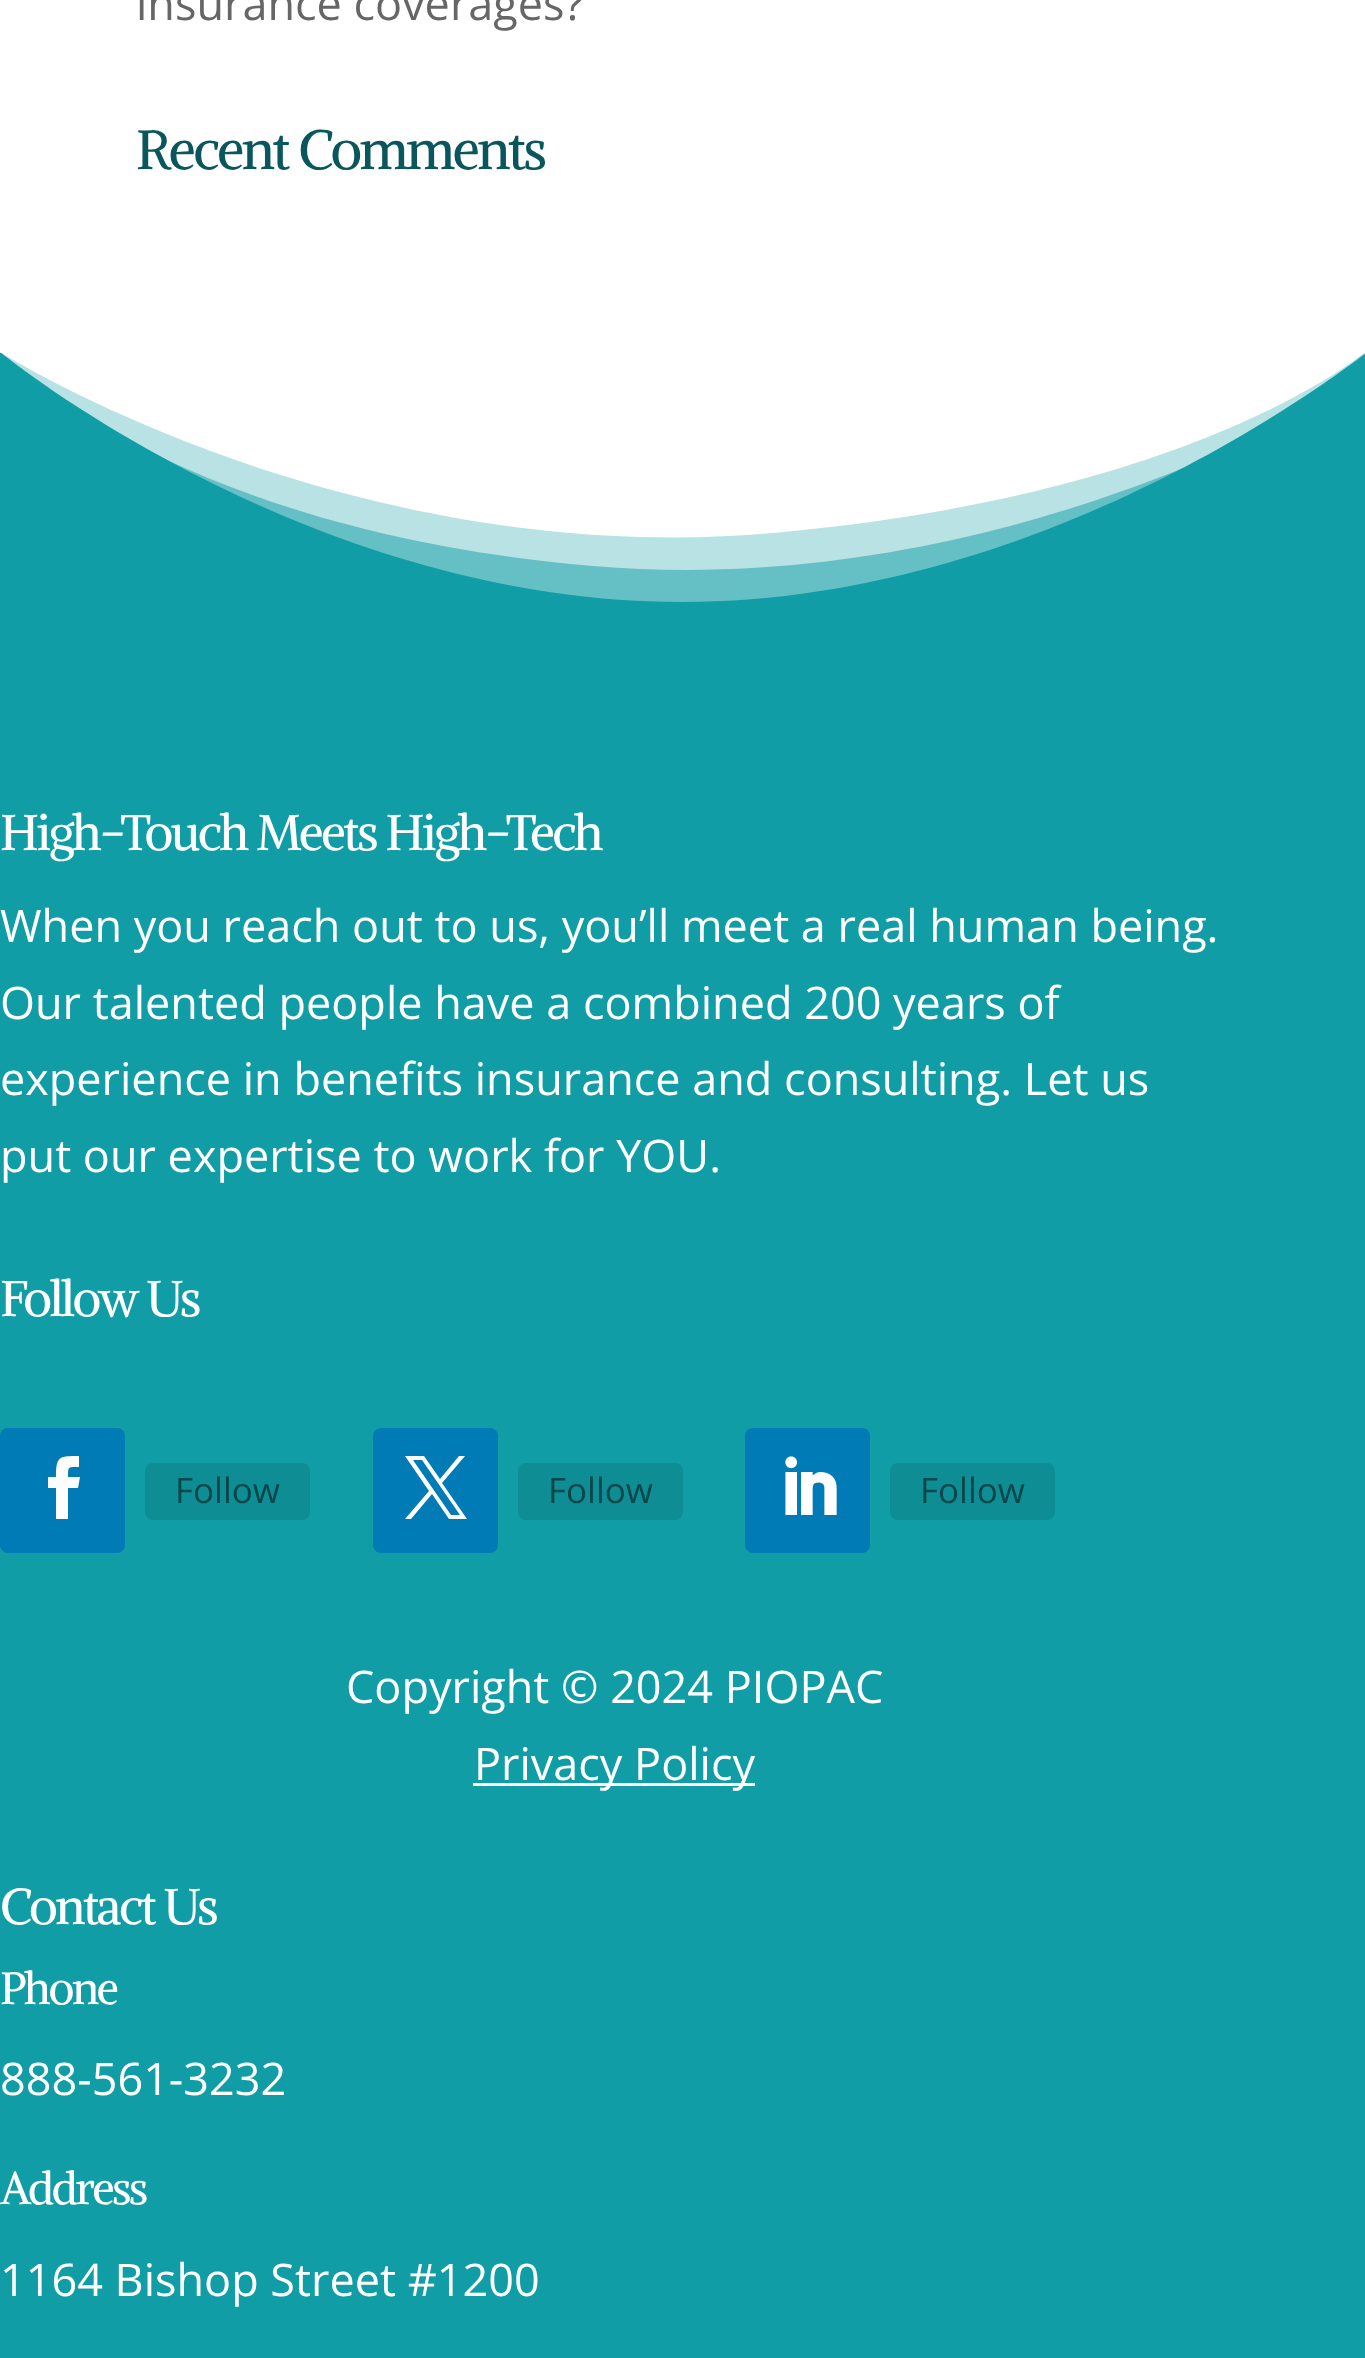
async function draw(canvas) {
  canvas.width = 1365;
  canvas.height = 2358;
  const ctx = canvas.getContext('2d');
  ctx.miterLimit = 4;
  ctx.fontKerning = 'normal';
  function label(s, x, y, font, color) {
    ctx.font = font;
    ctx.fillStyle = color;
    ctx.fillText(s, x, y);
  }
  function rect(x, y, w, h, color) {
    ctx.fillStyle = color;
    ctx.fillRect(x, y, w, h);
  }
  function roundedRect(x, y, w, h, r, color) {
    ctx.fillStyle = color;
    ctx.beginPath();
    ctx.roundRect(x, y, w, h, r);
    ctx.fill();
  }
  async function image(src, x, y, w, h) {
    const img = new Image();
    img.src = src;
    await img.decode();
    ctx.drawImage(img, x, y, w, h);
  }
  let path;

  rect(0, 0, 1365, 2358, '#fff');
  label('insurance coverages?', 136, 20, '45px Open Sans', '#666');
  ctx.letterSpacing = '-2.5px';
  label('Recent Comments', 136, 169, '55px Alike', '#09575c');
  ctx.save();
  ctx.beginPath();
  ctx.rect(0, 353, 1365, 250);
  ctx.clip();
  ctx.fillStyle = '#b8e2e4';
  path = new Path2D('M773 533C347 571 0 352 0 352V602H1365V352C1365 352 1200 495 773 533Z');
  ctx.fill(path);
  ctx.restore();
  ctx.fillStyle = '#109da580';
  path = new Path2D('M593 566C1017 602 1365 378 1365 378V602H0V352C0 352 170 530 593 566Z');
  ctx.fill(path);
  ctx.save();
  ctx.beginPath();
  ctx.rect(0, 353, 1365, 250);
  ctx.clip();
  ctx.fillStyle = '#109da5';
  path = new Path2D('M682 602C1059 602 1365 352 1365 354V604H0V352C0 352 306 602 682 602Z');
  ctx.fill(path);
  ctx.restore();
  rect(0, 603, 1365, 1755, '#109da5');
  label('High-Touch Meets High-Tech', 0, 850, '50px Alike', '#fff');
  ctx.letterSpacing = '0px';
  label('When you reach out to us, you’ll meet a real human being.', 0, 942, '45px Open Sans', '#fff');
  label('Our talented people have a combined 200 years of', 0, 1019, '45px Open Sans', '#fff');
  label('experience in benefits insurance and consulting. Let us', 0, 1095, '45px Open Sans', '#fff');
  label('put our expertise to work for YOU.', 0, 1172, '45px Open Sans', '#fff');
  ctx.letterSpacing = '-2.5px';
  label('Follow Us', 0, 1316, '50px Alike', '#fff');
  roundedRect(0, 1428, 125, 125, 8, '#007bb6');
  ctx.fillStyle = '#fff';
  path = new Path2D('M56 1519H68V1488H78L80 1477H68C68 1466 68 1467 79 1467V1456C59 1456 56 1456 56 1477H48V1488H56Z');
  ctx.fill(path);
  roundedRect(145, 1463, 165, 57, 8, '#0e8d95');
  ctx.letterSpacing = '0px';
  label('Follow', 175, 1503, '35px Open Sans', '#07474b');
  roundedRect(373, 1428, 125, 125, 8, '#007bb6');
  ctx.fillStyle = '#fff';
  path = new Path2D('M405 1456L429 1491L405 1519H411L432 1494L449 1519H467L442 1483L465 1456H459L440 1479L424 1456ZM413 1460H422L460 1515H451Z');
  ctx.fill(path);
  roundedRect(518, 1463, 165, 57, 8, '#0e8d95');
  label('Follow', 548, 1503, '35px Open Sans', '#07474b');
  roundedRect(745, 1428, 125, 125, 8, '#007bb6');
  await image('assets/img1.png', 785, 1456, 52, 59);
  roundedRect(890, 1463, 165, 57, 8, '#0e8d95');
  label('Follow', 920, 1503, '35px Open Sans', '#07474b');
  label('Copyright © 2024 PIOPAC', 346, 1703, '45px Open Sans', '#fff');
  rect(473, 1783, 282, 3, '#fff');
  label('Privacy Policy', 474, 1780, '45px Open Sans', '#fff');
  ctx.letterSpacing = '-2.5px';
  label('Contact Us', 0, 1924, '50px Alike', '#fff');
  label('Phone', 0, 2004, '45px Alike', '#fff');
  ctx.letterSpacing = '0px';
  label('888-561-3232', 0, 2095, '45px Open Sans', '#fff');
  ctx.letterSpacing = '-2.5px';
  label('Address', 0, 2204, '45px Alike', '#fff');
  ctx.letterSpacing = '0px';
  label('1164 Bishop Street #1200', 0, 2296, '45px Open Sans', '#fff');
}

draw(document.querySelector('canvas'));
